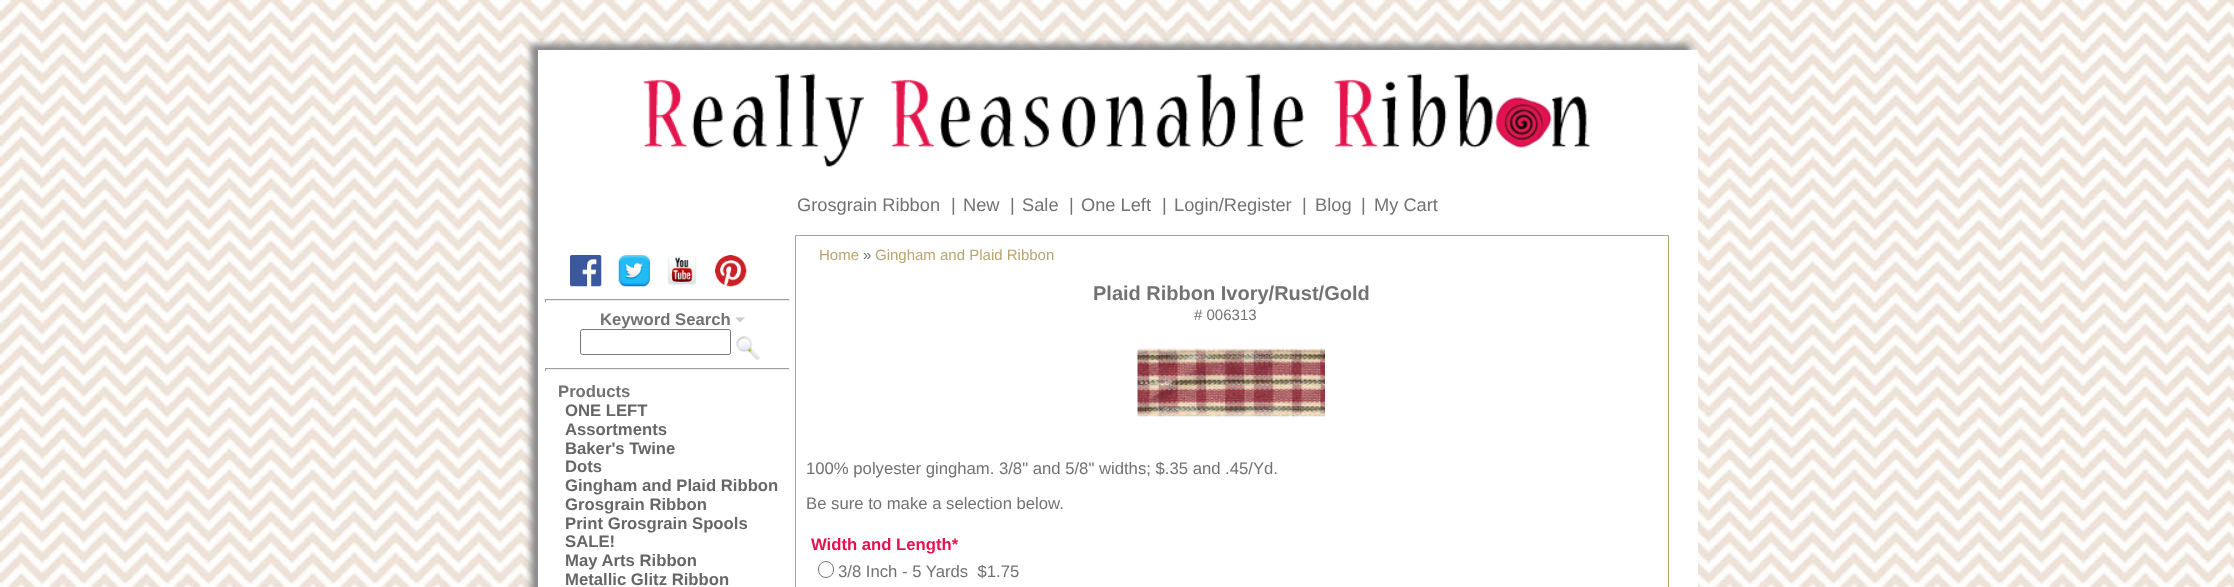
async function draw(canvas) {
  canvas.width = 2234;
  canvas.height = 587;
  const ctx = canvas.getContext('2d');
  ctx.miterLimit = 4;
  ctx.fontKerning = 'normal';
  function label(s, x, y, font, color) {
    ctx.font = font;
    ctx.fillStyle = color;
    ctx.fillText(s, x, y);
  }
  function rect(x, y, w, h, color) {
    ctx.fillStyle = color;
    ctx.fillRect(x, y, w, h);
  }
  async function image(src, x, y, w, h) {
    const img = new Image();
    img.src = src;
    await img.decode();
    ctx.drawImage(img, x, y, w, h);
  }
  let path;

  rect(0, 0, 2234, 587, '#fff');
  await image('assets/img1.png', 0, 0, 2234, 587);
  ctx.fillStyle = '#888';
  ctx.filter = 'blur(3px)';
  ctx.beginPath();
  ctx.rect(531, 44, 1160, 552);
  ctx.fill();
  ctx.filter = 'none';
  rect(538, 50, 1160, 537, '#fff');
  await image('assets/img2.png', 643, 73, 948, 94);
  label('Grosgrain Ribbon', 797, 211, '18.25px Liberation Sans', '#727272');
  label('|', 951, 211, '18.25px Liberation Sans', '#727272');
  label('New', 963, 211, '18.25px Liberation Sans', '#727272');
  label('|', 1010, 211, '18.25px Liberation Sans', '#727272');
  label('Sale', 1022, 211, '18.25px Liberation Sans', '#727272');
  label('|', 1069, 211, '18.25px Liberation Sans', '#727272');
  label('One Left', 1081, 211, '18.25px Liberation Sans', '#727272');
  label('|', 1162, 211, '18.25px Liberation Sans', '#727272');
  label('Login/Register', 1174, 211, '18.25px Liberation Sans', '#727272');
  label('|', 1302, 211, '18.25px Liberation Sans', '#727272');
  label('Blog', 1315, 211, '18.25px Liberation Sans', '#727272');
  label('|', 1361, 211, '18.25px Liberation Sans', '#727272');
  label('My Cart', 1374, 211, '18.25px Liberation Sans', '#727272');
  await image('assets/img3.png', 570, 255, 32, 32);
  await image('assets/img4.png', 618, 255, 32, 32);
  await image('assets/img5.png', 667, 256, 30, 29);
  await image('assets/img6.png', 715, 255, 32, 32);
  rect(545, 299, 245, 1, '#9f9f9f');
  rect(789, 299, 1, 3, '#eee');
  rect(545, 300, 245, 1, '#eee');
  rect(545, 299, 1, 3, '#9f9f9f');
  label('Keyword Search', 600, 325, 'bold 16.7px Liberation Sans', '#727272');
  ctx.fillStyle = '#ccc';
  path = new Path2D('M735 317.5H745L740 322.5Z');
  ctx.fill(path);
  ctx.beginPath();
  ctx.roundRect(580.5, 329.5, 150, 25, 2);
  ctx.strokeStyle = '#767676';
  ctx.stroke();
  await image('assets/img7.png', 736, 336, 24, 24);
  rect(545, 368, 245, 1, '#9f9f9f');
  rect(789, 368, 1, 3, '#eee');
  rect(545, 369, 245, 1, '#eee');
  rect(545, 368, 1, 3, '#9f9f9f');
  label('Products', 558, 397, 'bold 16.7px Liberation Sans', '#727272');
  label('ONE LEFT', 565, 416, 'bold 16.7px Liberation Sans', '#666');
  label('Assortments', 565, 435, 'bold 16.7px Liberation Sans', '#666');
  label('Baker\'s Twine', 565, 454, 'bold 16.7px Liberation Sans', '#666');
  label('Dots', 565, 472, 'bold 16.7px Liberation Sans', '#666');
  label('Gingham and Plaid Ribbon', 565, 491, 'bold 16.7px Liberation Sans', '#666');
  label('Grosgrain Ribbon', 565, 510, 'bold 16.7px Liberation Sans', '#666');
  label('Print Grosgrain Spools', 565, 529, 'bold 16.7px Liberation Sans', '#666');
  label('SALE!', 565, 547, 'bold 16.7px Liberation Sans', '#666');
  label('May Arts Ribbon', 565, 566, 'bold 16.7px Liberation Sans', '#666');
  label('Metallic Glitz Ribbon', 565, 585, 'bold 16.7px Liberation Sans', '#666');
  ctx.strokeStyle = '#b8a56f';
  ctx.strokeRect(795.5, 235.5, 873, 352);
  label('Home', 819, 260, '15px Liberation Sans', '#b8a56f');
  label('»', 863, 260, '15px Liberation Sans', '#727272');
  label('Gingham and Plaid Ribbon', 875, 260, '15px Liberation Sans', '#b8a56f');
  label('Plaid Ribbon Ivory/Rust/Gold', 1093, 300, 'bold 20px Liberation Sans', '#727272');
  label('# 006313', 1194, 320, '15px Liberation Sans', '#727272');
  await image('assets/img8.png', 1137, 348, 188, 69);
  label('100% polyester gingham. 3/8" and 5/8" widths; $.35 and .45/Yd.', 806, 474, '16.7px Liberation Sans', '#727272');
  label('Be sure to make a selection below.', 806, 509, '16.7px Liberation Sans', '#727272');
  label('Width and Length*', 811, 550, 'bold 16.7px Liberation Sans', '#e2134f');
  ctx.beginPath();
  ctx.roundRect(818.5, 561.5, 15, 16, 7.5);
  ctx.strokeStyle = '#767676';
  ctx.stroke();
  label('3/8 Inch - 5 Yards  $1.75', 838, 577, '16.7px Liberation Sans', '#727272');
}

draw(document.querySelector('canvas'));
